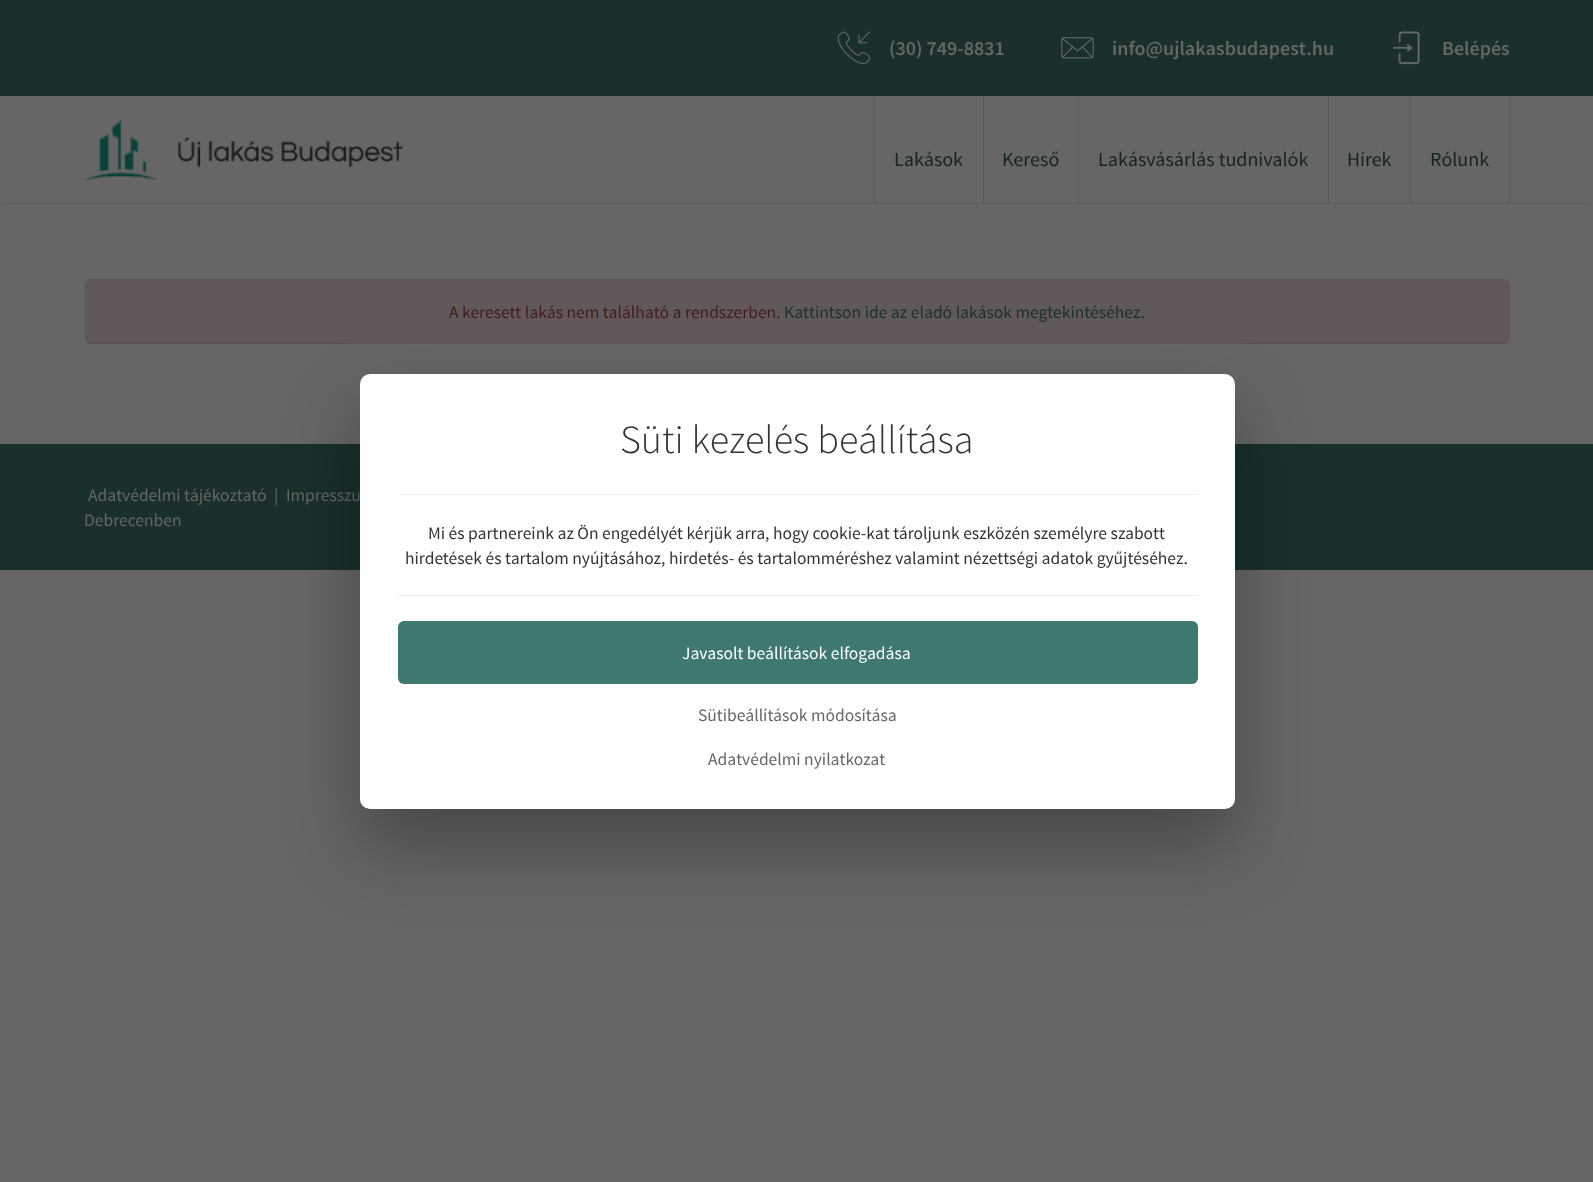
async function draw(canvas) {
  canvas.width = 1593;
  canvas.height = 1182;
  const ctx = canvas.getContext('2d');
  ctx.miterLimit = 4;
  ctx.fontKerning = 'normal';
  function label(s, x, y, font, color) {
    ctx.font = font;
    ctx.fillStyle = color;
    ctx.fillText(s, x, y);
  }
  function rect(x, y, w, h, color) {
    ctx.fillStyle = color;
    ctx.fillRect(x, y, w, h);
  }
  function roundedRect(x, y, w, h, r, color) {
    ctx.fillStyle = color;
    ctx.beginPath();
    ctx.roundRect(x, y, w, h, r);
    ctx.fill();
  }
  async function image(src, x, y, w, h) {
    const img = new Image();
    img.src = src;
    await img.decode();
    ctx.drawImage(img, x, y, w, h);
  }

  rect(0, 0, 1593, 1182, '#666');
  rect(0, 0, 1593, 96, '#19302d');
  await image('assets/img1.png', 837, 31, 34, 34);
  label('(30) 749-8831', 889, 55, '600 20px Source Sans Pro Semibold', '#666');
  await image('assets/img2.png', 1061, 37, 33, 22);
  label('info@ujlakasbudapest.hu', 1112, 55, '600 20px Source Sans Pro Semibold', '#666');
  await image('assets/img3.png', 1393, 31, 27, 34);
  label('Belépés', 1442, 55, '600 20px Source Sans Pro Semibold', '#666');
  rect(3, 203, 1588, 1, '#5a5a5a');
  await image('assets/img4.png', 85, 120, 318, 60);
  rect(874, 96, 1, 107, '#5a5a5a');
  label('Lakások', 894, 166, '20px Source Sans Pro', '#122421');
  rect(983, 96, 1, 107, '#5a5a5a');
  label('Kereső', 1002, 166, '20px Source Sans Pro', '#122421');
  rect(1078, 96, 1, 107, '#5a5a5a');
  label('Lakásvásárlás tudnivalók', 1098, 166, '20px Source Sans Pro', '#122421');
  rect(1328, 96, 1, 107, '#5a5a5a');
  label('Hírek', 1347, 166, '20px Source Sans Pro', '#122421');
  rect(1509, 96, 1, 107, '#5a5a5a');
  rect(1410, 96, 1, 107, '#5a5a5a');
  label('Rólunk', 1430, 166, '20px Source Sans Pro', '#122421');
  ctx.fillStyle = '#615959';
  ctx.beginPath();
  ctx.roundRect(85.5, 279.5, 1424, 64, 4.5);
  ctx.fill();
  ctx.strokeStyle = '#5e5254';
  ctx.stroke();
  label('A keresett lakás nem található a rendszerben.', 449, 318, '17.5px Source Sans Pro', '#441b1a');
  label('Kattintson ide az eladó lakások megtekintéséhez.', 784, 318, '17.5px Source Sans Pro', '#19302d');
  rect(0, 444, 1593, 126, '#19302d');
  label('Adatvédelmi tájékoztató', 88, 501, '17.5px Source Sans Pro', '#666');
  label('|', 274, 501, '17.5px Source Sans Pro', '#666');
  label('Impresszu', 286, 501, '17.5px Source Sans Pro', '#666');
  label('Debrecenben', 84, 526, '17.5px Source Sans Pro', '#666');
  ctx.fillStyle = '#0000004d';
  ctx.filter = 'blur(37.5px)';
  ctx.beginPath();
  ctx.roundRect(360, 411, 875, 435, 10);
  ctx.fill();
  ctx.filter = 'none';
  roundedRect(360, 374, 875, 435, 10, '#fff');
  label('Süti kezelés beállítása', 620, 453, '300 40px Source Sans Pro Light', '#333');
  rect(398, 494, 800, 1, '#eee');
  rect(398, 595, 800, 1, '#eee');
  label('Mi és partnereink az Ön engedélyét kérjük arra, hogy cookie-kat tároljunk eszközén személyre szabott', 428, 539, '17.5px Source Sans Pro', '#333');
  label('hirdetések és tartalom nyújtásához, hirdetés- és tartalomméréshez valamint nézettségi adatok gyűjtéséhez.', 405, 564, '17.5px Source Sans Pro', '#333');
  roundedRect(398, 621, 800, 63, 6, '#3e7871');
  label('Javasolt beállítások elfogadása', 682, 659, '17.5px Source Sans Pro', '#fff');
  label('Sütibeállítások módosítása', 698, 721, '17.5px Source Sans Pro', '#666');
  label('Adatvédelmi nyilatkozat', 708, 765, '17.5px Source Sans Pro', '#666');
}

draw(document.querySelector('canvas'));
